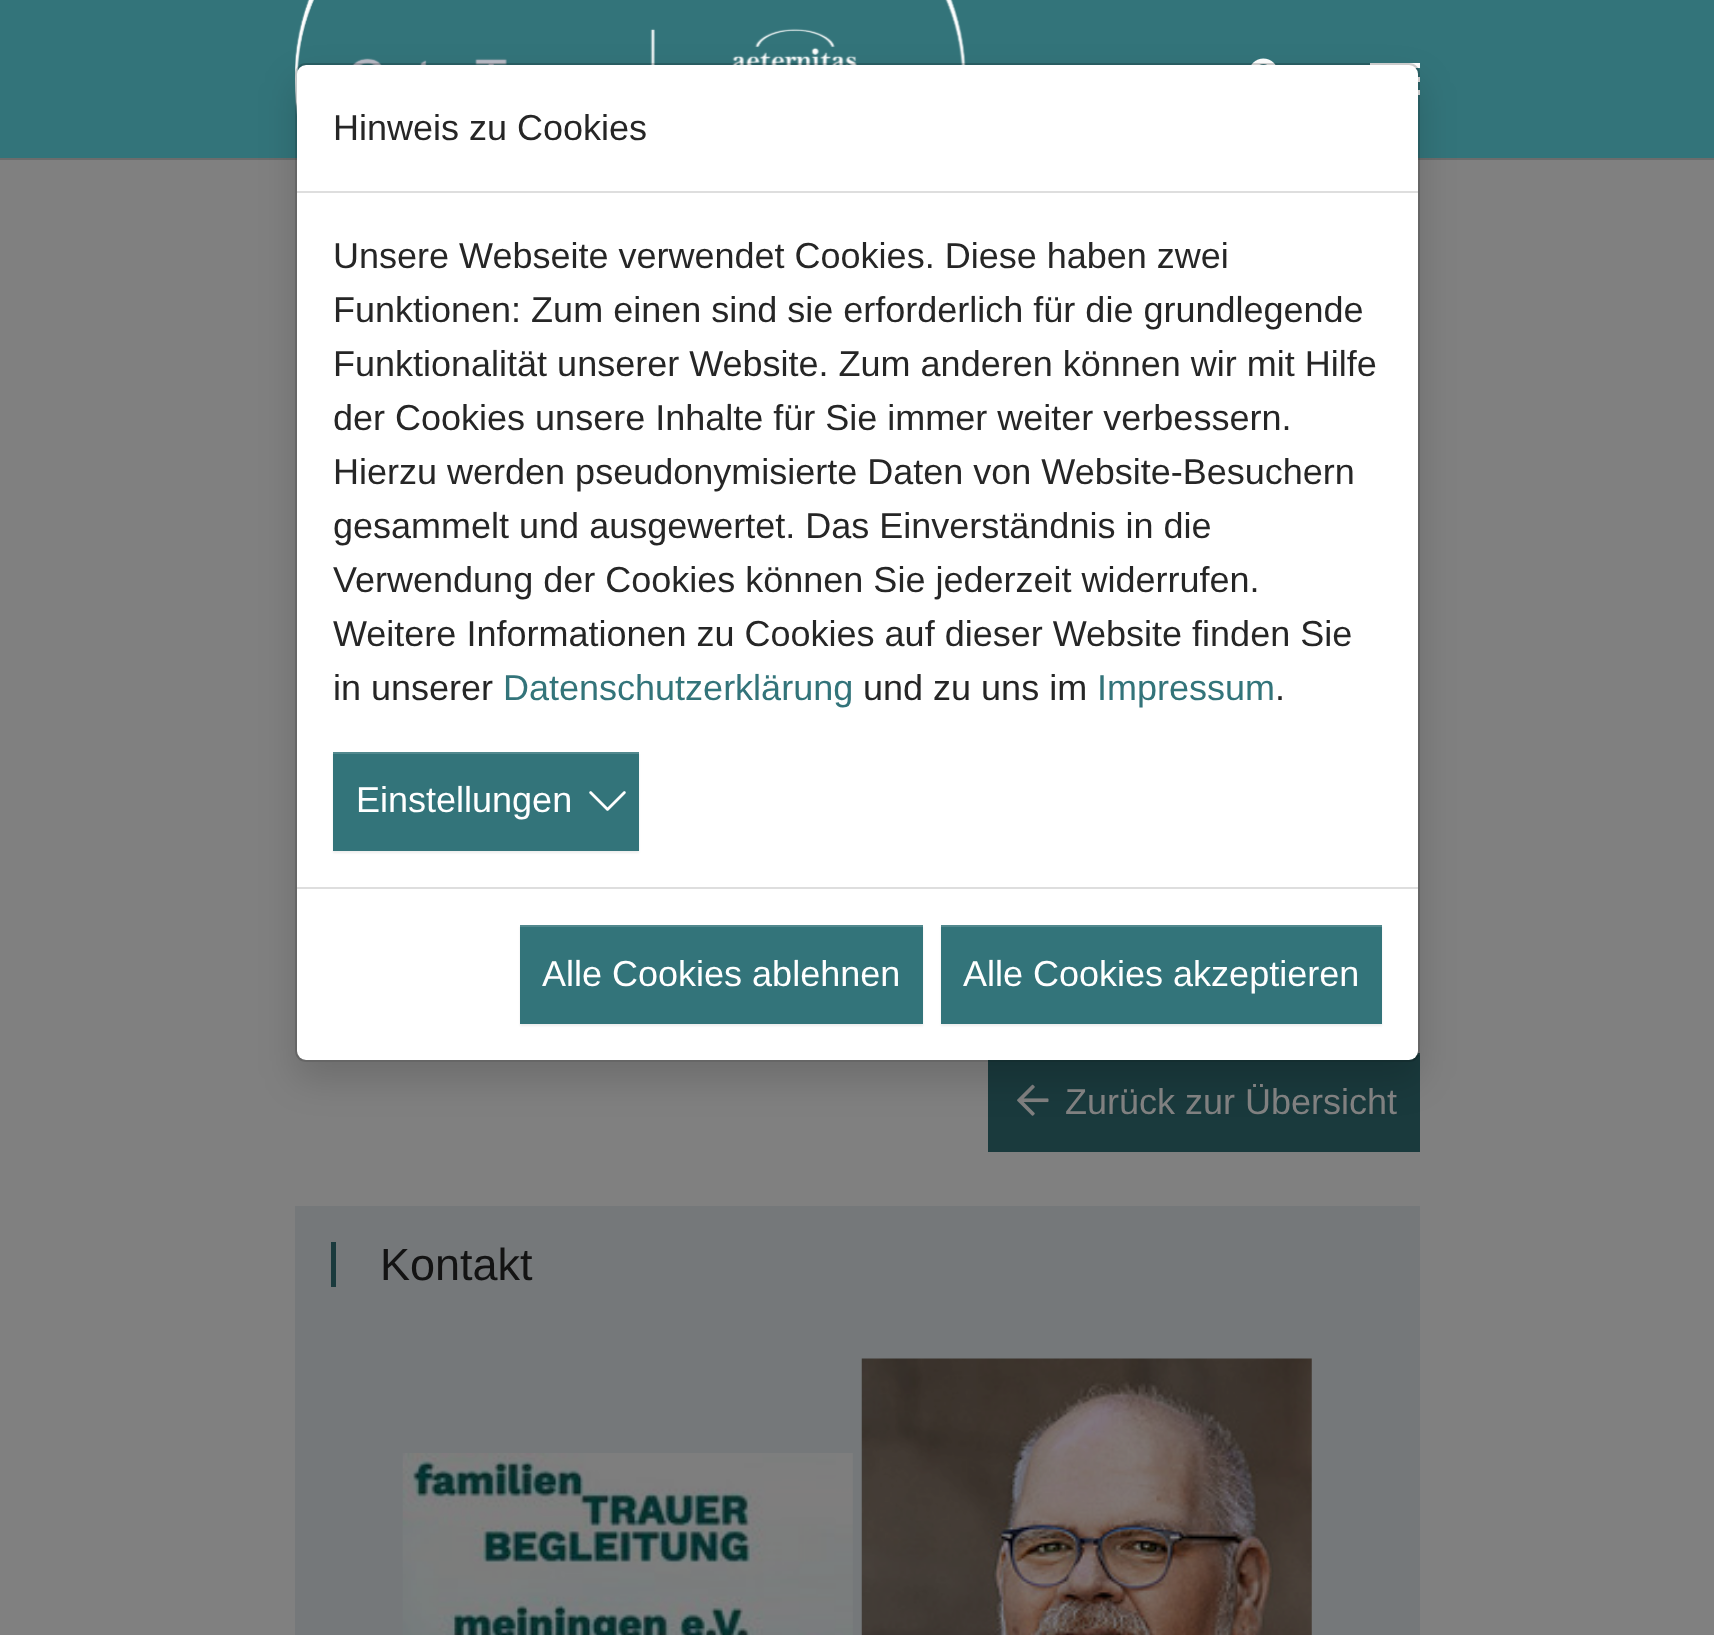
async function draw(canvas) {
  canvas.width = 1714;
  canvas.height = 1635;
  const ctx = canvas.getContext('2d');
  ctx.miterLimit = 4;
  ctx.fontKerning = 'normal';
  function label(s, x, y, font, color) {
    ctx.font = font;
    ctx.fillStyle = color;
    ctx.fillText(s, x, y);
  }
  function rect(x, y, w, h, color) {
    ctx.fillStyle = color;
    ctx.fillRect(x, y, w, h);
  }
  function roundedRect(x, y, w, h, r, color) {
    ctx.fillStyle = color;
    ctx.beginPath();
    ctx.roundRect(x, y, w, h, r);
    ctx.fill();
  }
  async function image(src, x, y, w, h) {
    const img = new Image();
    img.src = src;
    await img.decode();
    ctx.drawImage(img, x, y, w, h);
  }
  let path;

  rect(0, 0, 1714, 1635, '#808080');
  ctx.fillStyle = '#6c6c6c';
  path = new Path2D('M0 158V160H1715V2H1714V158Z');
  ctx.fill(path);
  rect(0, 0, 1714, 158, '#33747a');
  await image('assets/img2.png', 295, 0, 671, 116);
  await image('assets/img3.png', 1251, 58, 25, 7);
  rect(1418, 77, 2, 5, '#fff');
  rect(1370, 63, 50, 5, '#fff');
  rect(1418, 90, 2, 5, '#fff');
  rect(988, 1055, 432, 97, '#1a3a3d');
  rect(1417, 1053, 3, 2, '#294547');
  await image('assets/img4.png', 1017, 1084, 32, 32);
  ctx.save();
  path = new Path2D('M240 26H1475V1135H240ZM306 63H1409C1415 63 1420 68 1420 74V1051C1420 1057 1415 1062 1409 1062H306C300 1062 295 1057 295 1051V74C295 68 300 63 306 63Z');
  ctx.clip(path, 'evenodd');
  ctx.fillStyle = '#00000026';
  ctx.filter = 'blur(18px)';
  ctx.beginPath();
  ctx.roundRect(295, 81, 1125, 999, 11);
  ctx.fill();
  ctx.filter = 'none';
  ctx.restore();
  roundedRect(297, 65, 1121, 995, 9, '#fff');
  ctx.beginPath();
  ctx.roundRect(296, 64, 1123, 997, 10);
  ctx.strokeStyle = '#00000033';
  ctx.lineWidth = 2;
  ctx.stroke();
  rect(297, 191, 1121, 2, '#dedede');
  label('Hinweis zu Cookies', 333, 140, '36px Liberation Sans', '#262626');
  label('Unsere Webseite verwendet Cookies. Diese haben zwei', 333, 268, '36px Liberation Sans', '#262626');
  label('Funktionen: Zum einen sind sie erforderlich für die grundlegende', 333, 322, '36px Liberation Sans', '#262626');
  label('Funktionalität unserer Website. Zum anderen können wir mit Hilfe', 333, 376, '36px Liberation Sans', '#262626');
  label('der Cookies unsere Inhalte für Sie immer weiter verbessern.', 333, 430, '36px Liberation Sans', '#262626');
  label('Hierzu werden pseudonymisierte Daten von Website-Besuchern', 333, 484, '36px Liberation Sans', '#262626');
  label('gesammelt und ausgewertet. Das Einverständnis in die', 333, 538, '36px Liberation Sans', '#262626');
  label('Verwendung der Cookies können Sie jederzeit widerrufen.', 333, 592, '36px Liberation Sans', '#262626');
  label('Weitere Informationen zu Cookies auf dieser Website finden Sie', 333, 646, '36px Liberation Sans', '#262626');
  label('in unserer', 333, 700, '36px Liberation Sans', '#262626');
  label('Datenschutzerklärung', 503, 700, '36px Liberation Sans', '#33747a');
  label('und zu uns im', 863, 700, '36px Liberation Sans', '#262626');
  label('Impressum', 1097, 700, '36px Liberation Sans', '#33747a');
  label('.', 1275, 700, '36px Liberation Sans', '#262626');
  ctx.fillStyle = '#00000012';
  ctx.filter = 'blur(1px)';
  ctx.beginPath();
  ctx.rect(333, 754, 306, 99);
  ctx.fill();
  ctx.filter = 'none';
  rect(333, 754, 306, 97, '#33747a');
  rect(333, 752, 306, 2, '#52898e');
  label('Einstellungen', 356, 812, '36px Liberation Sans', '#fff');
  await image('assets/img1.png', 589, 791, 37, 20);
  rect(297, 887, 1121, 2, '#dedede');
  ctx.fillStyle = '#00000012';
  ctx.filter = 'blur(1px)';
  ctx.beginPath();
  ctx.rect(520, 927, 403, 99);
  ctx.fill();
  ctx.filter = 'none';
  rect(520, 927, 403, 97, '#33747a');
  rect(520, 925, 403, 2, '#52898e');
  label('Alle Cookies ablehnen', 542, 986, '36px Liberation Sans', '#fff');
  ctx.fillStyle = '#00000012';
  ctx.filter = 'blur(1px)';
  ctx.beginPath();
  ctx.rect(941, 927, 441, 99);
  ctx.fill();
  ctx.filter = 'none';
  rect(941, 927, 441, 97, '#33747a');
  rect(941, 925, 441, 2, '#52898e');
  label('Alle Cookies akzeptieren', 963, 986, '36px Liberation Sans', '#fff');
  label('Zurück zur Übersicht', 1065, 1114, '36px Liberation Sans', '#808080');
  rect(295, 1206, 1125, 429, '#75787a');
  rect(331, 1242, 5, 45, '#1a3a3d');
  label('Kontakt', 380, 1280, '45px Liberation Sans', '#131313');
  await image('assets/img5.png', 402, 1453, 451, 182);
  await image('assets/img6.png', 861, 1358, 451, 277);
}

draw(document.querySelector('canvas'));
